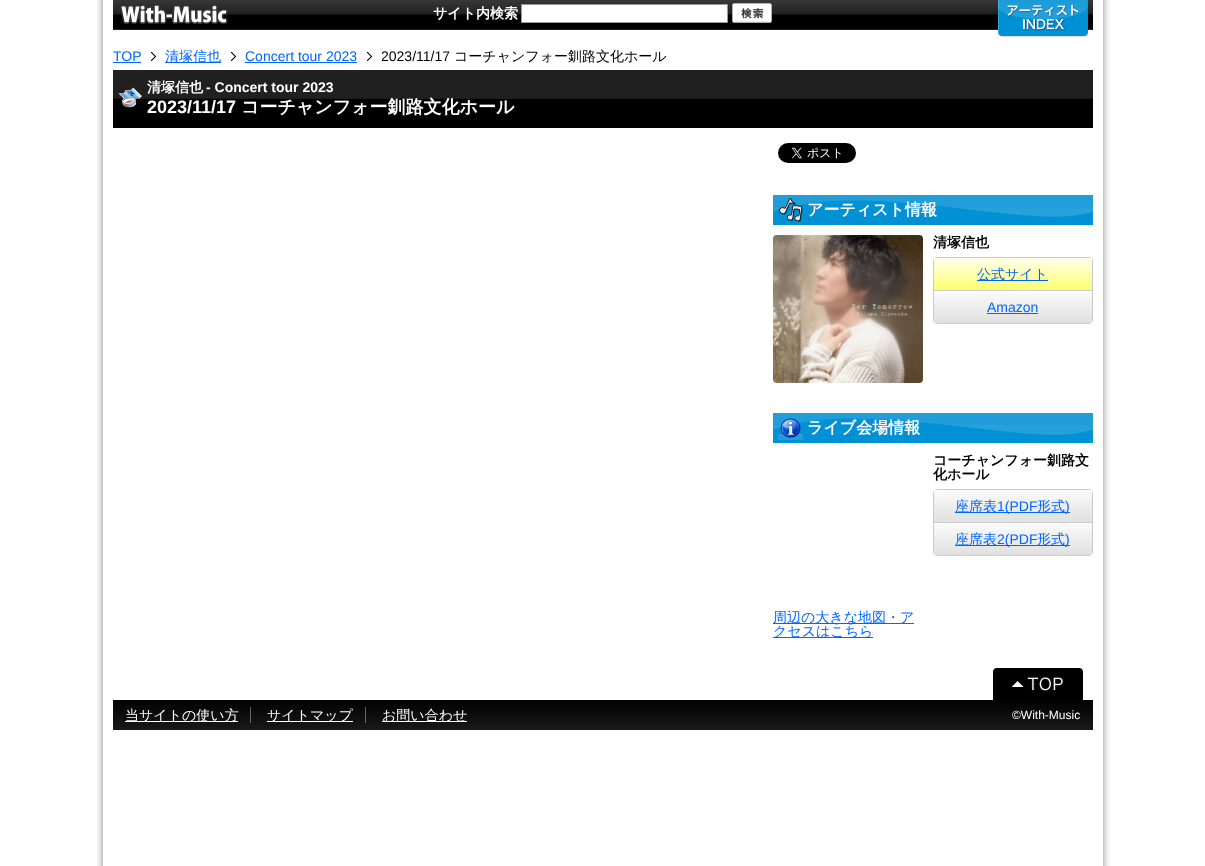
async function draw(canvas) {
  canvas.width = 1205;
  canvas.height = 866;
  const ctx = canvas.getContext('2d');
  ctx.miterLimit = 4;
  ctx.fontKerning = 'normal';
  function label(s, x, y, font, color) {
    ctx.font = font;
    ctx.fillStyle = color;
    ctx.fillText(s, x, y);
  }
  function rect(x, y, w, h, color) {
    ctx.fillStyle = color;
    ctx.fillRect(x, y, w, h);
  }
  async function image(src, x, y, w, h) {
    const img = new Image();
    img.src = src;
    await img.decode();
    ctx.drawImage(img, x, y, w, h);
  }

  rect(0, 0, 1205, 866, '#fff');
  await image('assets/img1.png', 97, 0, 1013, 866);
  await image('assets/img2.png', 113, 0, 980, 30);
  await image('assets/img3.png', 120, 5, 108, 19);
  await image('assets/img4.png', 998, 0, 90, 37);
  label('サイト内検索', 433, 18, 'bold 14px WenQuanYi Zen Hei', '#fff');
  ctx.beginPath();
  ctx.rect(521.5, 4.5, 206, 18);
  ctx.fill();
  ctx.strokeStyle = '#999';
  ctx.stroke();
  await image('assets/img5.png', 732, 3, 40, 20);
  label('TOP', 113, 61, '14px Liberation Sans', '#06f');
  rect(113, 62, 28, 1, '#06f');
  await image('assets/img6.png', 151, 52, 5, 9);
  rect(165, 62, 56, 1, '#06f');
  label('清塚信也', 165, 61, '500 14px WenQuanYi Zen Hei', '#06f');
  await image('assets/img6.png', 231, 52, 5, 9);
  label('Concert tour 2023', 245, 61, '14px Liberation Sans', '#06f');
  rect(245, 62, 112, 1, '#06f');
  await image('assets/img6.png', 367, 52, 5, 9);
  label('2023/11/17', 381, 61, '14px Liberation Sans', '#000');
  label('コーチャンフォー釧路文化ホール', 454, 61, '500 14px WenQuanYi Zen Hei', '#000');
  await image('assets/img7.png', 113, 70, 980, 58);
  await image('assets/img8.png', 118, 87, 24, 21);
  label('清塚信也', 147, 92, 'bold 14px WenQuanYi Zen Hei', '#fff');
  label('- Concert tour 2023', 206, 92, 'bold 14px Liberation Sans', '#fff');
  label('2023/11/17', 147, 113, 'bold 18px Liberation Sans', '#fff');
  label('コーチャンフォー釧路文化ホール', 241, 113, 'bold 18px WenQuanYi Zen Hei', '#fff');
  await image('assets/img9.png', 778, 143, 78, 20);
  rect(773, 217, 320, 8, '#0090d4');
  await image('assets/img10.png', 773, 195, 320, 22);
  await image('assets/img11.png', 779, 198, 24, 24);
  label('アーティスト情報', 807, 215, 'bold 16px WenQuanYi Zen Hei', '#fff');
  await image('assets/img12.png', 773, 235, 150, 148);
  label('清塚信也', 933, 247, 'bold 14px WenQuanYi Zen Hei', '#000');
  ctx.beginPath();
  ctx.roundRect(933.5, 257.5, 159, 66, 3.5);
  ctx.strokeStyle = '#ccc';
  ctx.stroke();
  await image('assets/img13.png', 934, 258, 158, 32);
  rect(934, 290, 158, 1, '#ccc');
  rect(977, 280, 71, 1, '#06f');
  label('公式サイト', 977, 279, '500 14px WenQuanYi Zen Hei', '#06f');
  await image('assets/img14.png', 934, 292, 158, 31);
  label('Amazon', 987, 312, '14px Liberation Sans', '#06f');
  rect(987, 313, 51, 1, '#06f');
  rect(773, 435, 320, 8, '#0090d4');
  await image('assets/img10.png', 773, 413, 320, 22);
  await image('assets/img15.png', 778, 418, 25, 22);
  label('ライブ会場情報', 807, 433, 'bold 16px WenQuanYi Zen Hei', '#fff');
  label('コーチャンフォー釧路文', 933, 465, 'bold 14px WenQuanYi Zen Hei', '#000');
  label('化ホール', 933, 479, 'bold 14px WenQuanYi Zen Hei', '#000');
  ctx.beginPath();
  ctx.roundRect(933.5, 489.5, 159, 66, 3.5);
  ctx.stroke();
  await image('assets/img16.png', 934, 490, 158, 32);
  rect(934, 522, 158, 1, '#ccc');
  rect(955, 512, 115, 1, '#06f');
  label('座席表', 955, 511, '500 14px WenQuanYi Zen Hei', '#06f');
  label('1(PDF', 997, 511, '14px Liberation Sans', '#06f');
  label('形式', 1037, 511, '500 14px WenQuanYi Zen Hei', '#06f');
  label(')', 1065, 511, '14px Liberation Sans', '#06f');
  await image('assets/img14.png', 934, 524, 158, 31);
  rect(955, 545, 115, 1, '#06f');
  label('座席表', 955, 544, '500 14px WenQuanYi Zen Hei', '#06f');
  label('2(PDF', 997, 544, '14px Liberation Sans', '#06f');
  label('形式', 1037, 544, '500 14px WenQuanYi Zen Hei', '#06f');
  label(')', 1065, 544, '14px Liberation Sans', '#06f');
  rect(773, 623, 141, 1, '#06f');
  label('周辺の大きな地図・ア', 773, 622, '500 14px WenQuanYi Zen Hei', '#06f');
  rect(773, 637, 100, 1, '#06f');
  label('クセスはこちら', 773, 636, '500 14px WenQuanYi Zen Hei', '#06f');
  await image('assets/img17.png', 113, 700, 980, 30);
  await image('assets/img18.png', 993, 668, 90, 32);
  rect(125, 721, 113, 1, '#fff');
  label('当サイトの使い方', 125, 720, '500 14px WenQuanYi Zen Hei', '#fff');
  rect(250, 707, 1, 16, '#666');
  rect(267, 721, 86, 1, '#fff');
  label('サイトマップ', 267, 720, '500 14px WenQuanYi Zen Hei', '#fff');
  rect(365, 707, 1, 16, '#666');
  rect(382, 721, 85, 1, '#fff');
  label('お問い合わせ', 382, 720, '500 14px WenQuanYi Zen Hei', '#fff');
  label('©With-Music', 1012, 719, '12px Liberation Sans', '#fff');
}

draw(document.querySelector('canvas'));
